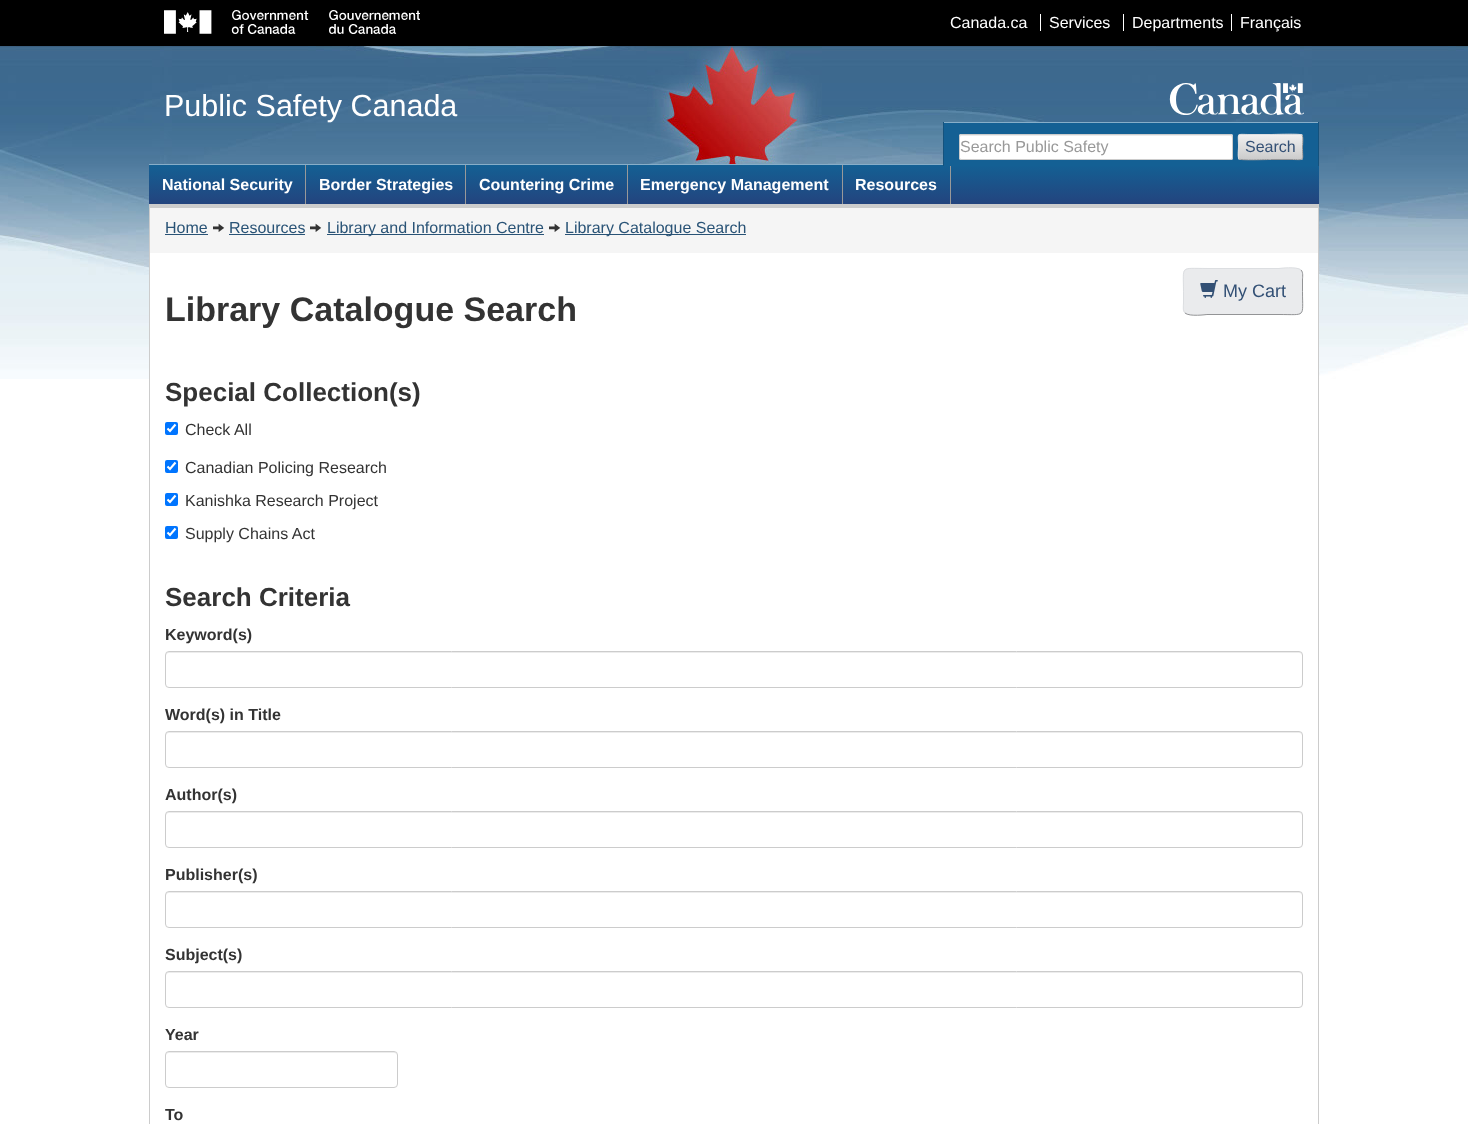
async function draw(canvas) {
  canvas.width = 1468;
  canvas.height = 1124;
  const ctx = canvas.getContext('2d');
  ctx.miterLimit = 4;
  ctx.fontKerning = 'normal';
  function label(s, x, y, font, color) {
    ctx.font = font;
    ctx.fillStyle = color;
    ctx.fillText(s, x, y);
  }
  function rect(x, y, w, h, color) {
    ctx.fillStyle = color;
    ctx.fillRect(x, y, w, h);
  }
  function roundedRect(x, y, w, h, r, color) {
    ctx.fillStyle = color;
    ctx.beginPath();
    ctx.roundRect(x, y, w, h, r);
    ctx.fill();
  }
  async function image(src, x, y, w, h) {
    const img = new Image();
    img.src = src;
    await img.decode();
    ctx.drawImage(img, x, y, w, h);
  }
  let gradient, path;

  rect(0, 0, 1468, 1124, '#fff');
  await image('assets/img1.png', 0, 46, 1468, 333);
  rect(0, 0, 1468, 46, '#000');
  await image('assets/img2.png', 164, 10, 256, 24);
  label('Canada.ca', 950, 28, '16px Liberation Sans', '#fff');
  label('Services', 1049, 28, '16px Liberation Sans', '#fff');
  rect(1040, 14, 1, 17, '#fff');
  label('Departments', 1132, 28, '16px Liberation Sans', '#fff');
  rect(1123, 14, 1, 17, '#fff');
  label('Français', 1240, 28, '16px Liberation Sans', '#fff');
  rect(1231, 14, 1, 17, '#fff');
  label('Public Safety Canada', 164, 116, '30.5px Liberation Sans', '#fff');
  await image('assets/img3.png', 1169, 83, 135, 32);
  gradient = ctx.createLinearGradient(734, 165, 734, 204);
  gradient.addColorStop(0, '#146094');
  gradient.addColorStop(1, '#23447e');
  ctx.fillStyle = gradient;
  ctx.fillRect(149, 165, 1170, 39);
  rect(950, 165, 1, 39, '#999');
  rect(944, 123, 374, 43, '#146094');
  rect(943, 122, 376, 1, '#87aec9');
  rect(1318, 122, 1, 44, '#15527d');
  rect(943, 122, 1, 44, '#15527d');
  roundedRect(959, 134, 274, 26, 2, '#fff');
  ctx.fillStyle = '#ececec';
  path = new Path2D('M961 136H1231L1232 138V135H961C960 135 960 136 960 137Z');
  ctx.fill(path);
  ctx.beginPath();
  ctx.roundRect(959.5, 134.5, 273, 25, 1.5);
  ctx.strokeStyle = '#ccc';
  ctx.stroke();
  label('Search Public Safety', 960, 152, '16px Liberation Sans', '#999');
  ctx.save();
  ctx.beginPath();
  ctx.roundRect(1238, 134, 65, 26, 2);
  ctx.clip();
  gradient = ctx.createLinearGradient(1271, 111, 1271, 135);
  gradient.addColorStop(0, '#f0f0f0');
  gradient.addColorStop(1, '#ccc');
  ctx.fillStyle = gradient;
  ctx.fillRect(1238, 134, 65, 1);
  gradient = ctx.createLinearGradient(1271, 135, 1271, 159);
  gradient.addColorStop(0, '#f0f0f0');
  gradient.addColorStop(1, '#ccc');
  ctx.fillStyle = gradient;
  ctx.fillRect(1238, 135, 65, 24);
  gradient = ctx.createLinearGradient(1271, 159, 1271, 183);
  gradient.addColorStop(0, '#f0f0f0');
  gradient.addColorStop(1, '#ccc');
  ctx.fillStyle = gradient;
  ctx.fillRect(1238, 159, 65, 1);
  ctx.restore();
  path = new Path2D('M1302 135C1303.5 136.5 1302.5 145 1302.5 147C1302.5 162 1305.5 159.5 1291 159.5H1270.5C1267 159.5 1240 160.5 1239 159');
  ctx.strokeStyle = '#939496';
  ctx.stroke(path);
  path = new Path2D('M1239 159C1237.5 157.5 1238.5 149 1238.5 147C1238.5 132 1235.5 134.5 1250 134.5H1270.5C1274 134.5 1301 133.5 1302 135');
  ctx.strokeStyle = '#dcdee1';
  ctx.stroke(path);
  label('Search', 1245, 152, '16px Liberation Sans', '#335075');
  rect(149, 164, 794, 1, '#87aec9');
  rect(149, 204, 1170, 4, '#ccc');
  rect(305, 165, 1, 39, '#999');
  label('National Security', 162, 190, 'bold 16px Liberation Sans', '#fff');
  rect(465, 165, 1, 39, '#999');
  label('Border Strategies', 319, 190, 'bold 16px Liberation Sans', '#fff');
  rect(627, 165, 1, 39, '#999');
  label('Countering Crime', 479, 190, 'bold 16px Liberation Sans', '#fff');
  rect(842, 165, 1, 39, '#999');
  label('Emergency Management', 640, 190, 'bold 16px Liberation Sans', '#fff');
  label('Resources', 855, 190, 'bold 16px Liberation Sans', '#fff');
  rect(1318, 208, 1, 916, '#ccc');
  rect(149, 208, 1, 916, '#ccc');
  rect(150, 208, 1168, 45, '#f5f5f5');
  label('Home', 165, 233, '16px Liberation Sans', '#295376');
  rect(165, 234, 43, 1, '#295376');
  await image('assets/img4.png', 213, 223, 12, 9);
  label('Resources', 229, 233, '16px Liberation Sans', '#295376');
  rect(229, 234, 76, 1, '#295376');
  await image('assets/img4.png', 310, 223, 12, 9);
  rect(327, 234, 217, 1, '#295376');
  label('Library and Information Centre', 327, 233, '16px Liberation Sans', '#295376');
  await image('assets/img4.png', 549, 223, 12, 9);
  rect(565, 234, 181, 1, '#295376');
  label('Library Catalogue Search', 565, 233, '16px Liberation Sans', '#295376');
  rect(150, 253, 1168, 126, '#fff');
  roundedRect(1183, 268, 120, 47, 6, '#eaebed');
  path = new Path2D('M1301 270C1303.5 272.5 1302.5 277 1302.5 280V291.5C1302.5 318 1306.5 314.5 1279 314.5H1207C1206.5 314.5 1189.5 317 1185 313');
  ctx.strokeStyle = '#939496';
  ctx.stroke(path);
  path = new Path2D('M1185 313C1182.5 310.5 1183.5 306 1183.5 303V291.5C1183.5 265 1179.5 268.5 1207 268.5H1279C1279.5 268.5 1296.5 266 1301 270');
  ctx.strokeStyle = '#dcdee1';
  ctx.stroke(path);
  await image('assets/img5.png', 1200, 280, 18, 18);
  label('My Cart', 1223, 297, '18px Liberation Sans', '#335075');
  label('Library Catalogue Search', 165, 321, 'bold 34px Liberation Sans', '#333');
  label('Special Collection(s)', 165, 401, 'bold 26px Liberation Sans', '#333');
  roundedRect(165, 422, 13, 13, 2, '#0075ff');
  path = new Path2D('M167.5 428.5L170 431L175.5 424.5');
  ctx.strokeStyle = '#fff';
  ctx.lineWidth = 2.1;
  ctx.stroke(path);
  label('Check All', 185, 435, '16px Liberation Sans', '#333');
  roundedRect(165, 460, 13, 13, 2, '#0075ff');
  path = new Path2D('M167.5 466.5L170 469L175.5 462.5');
  ctx.stroke(path);
  label('Canadian Policing Research', 185, 473, '16px Liberation Sans', '#333');
  roundedRect(165, 493, 13, 13, 2, '#0075ff');
  path = new Path2D('M167.5 499.5L170 502L175.5 495.5');
  ctx.stroke(path);
  label('Kanishka Research Project', 185, 506, '16px Liberation Sans', '#333');
  roundedRect(165, 526, 13, 13, 2, '#0075ff');
  path = new Path2D('M167.5 532.5L170 535L175.5 528.5');
  ctx.stroke(path);
  label('Supply Chains Act', 185, 539, '16px Liberation Sans', '#333');
  label('Search Criteria', 165, 606, 'bold 26px Liberation Sans', '#333');
  label('Keyword(s)', 165, 640, 'bold 16px Liberation Sans', '#333');
  ctx.fillStyle = '#ececec';
  path = new Path2D('M169 653H1299C1301 653 1302 654 1302 656V655C1302 653 1301 652 1299 652H169C167 652 166 653 166 655V656C166 654 167 653 169 653Z');
  ctx.fill(path);
  ctx.beginPath();
  ctx.roundRect(165.5, 651.5, 1137, 36, 3.5);
  ctx.strokeStyle = '#ccc';
  ctx.lineWidth = 1;
  ctx.stroke();
  label('Word(s) in Title', 165, 720, 'bold 16px Liberation Sans', '#333');
  ctx.fillStyle = '#ececec';
  path = new Path2D('M169 733H1299C1301 733 1302 734 1302 736V735C1302 733 1301 732 1299 732H169C167 732 166 733 166 735V736C166 734 167 733 169 733Z');
  ctx.fill(path);
  ctx.beginPath();
  ctx.roundRect(165.5, 731.5, 1137, 36, 3.5);
  ctx.stroke();
  label('Author(s)', 165, 800, 'bold 16px Liberation Sans', '#333');
  ctx.fillStyle = '#ececec';
  path = new Path2D('M169 813H1299C1301 813 1302 814 1302 816V815C1302 813 1301 812 1299 812H169C167 812 166 813 166 815V816C166 814 167 813 169 813Z');
  ctx.fill(path);
  ctx.beginPath();
  ctx.roundRect(165.5, 811.5, 1137, 36, 3.5);
  ctx.stroke();
  label('Publisher(s)', 165, 880, 'bold 16px Liberation Sans', '#333');
  ctx.fillStyle = '#ececec';
  path = new Path2D('M169 893H1299C1301 893 1302 894 1302 896V895C1302 893 1301 892 1299 892H169C167 892 166 893 166 895V896C166 894 167 893 169 893Z');
  ctx.fill(path);
  ctx.beginPath();
  ctx.roundRect(165.5, 891.5, 1137, 36, 3.5);
  ctx.stroke();
  label('Subject(s)', 165, 960, 'bold 16px Liberation Sans', '#333');
  ctx.fillStyle = '#ececec';
  path = new Path2D('M169 973H1299C1301 973 1302 974 1302 976V975C1302 973 1301 972 1299 972H169C167 972 166 973 166 975V976C166 974 167 973 169 973Z');
  ctx.fill(path);
  ctx.beginPath();
  ctx.roundRect(165.5, 971.5, 1137, 36, 3.5);
  ctx.stroke();
  label('Year', 165, 1040, 'bold 16px Liberation Sans', '#333');
  ctx.fillStyle = '#ececec';
  path = new Path2D('M169 1053H394C396 1053 397 1054 397 1056C397 1054 396 1052 394 1052H169C167 1052 166 1054 166 1056C166 1054 167 1053 169 1053Z');
  ctx.fill(path);
  ctx.beginPath();
  ctx.roundRect(165.5, 1051.5, 232, 36, 3.5);
  ctx.stroke();
  label('To', 165, 1120, 'bold 16px Liberation Sans', '#333');
}

draw(document.querySelector('canvas'));
